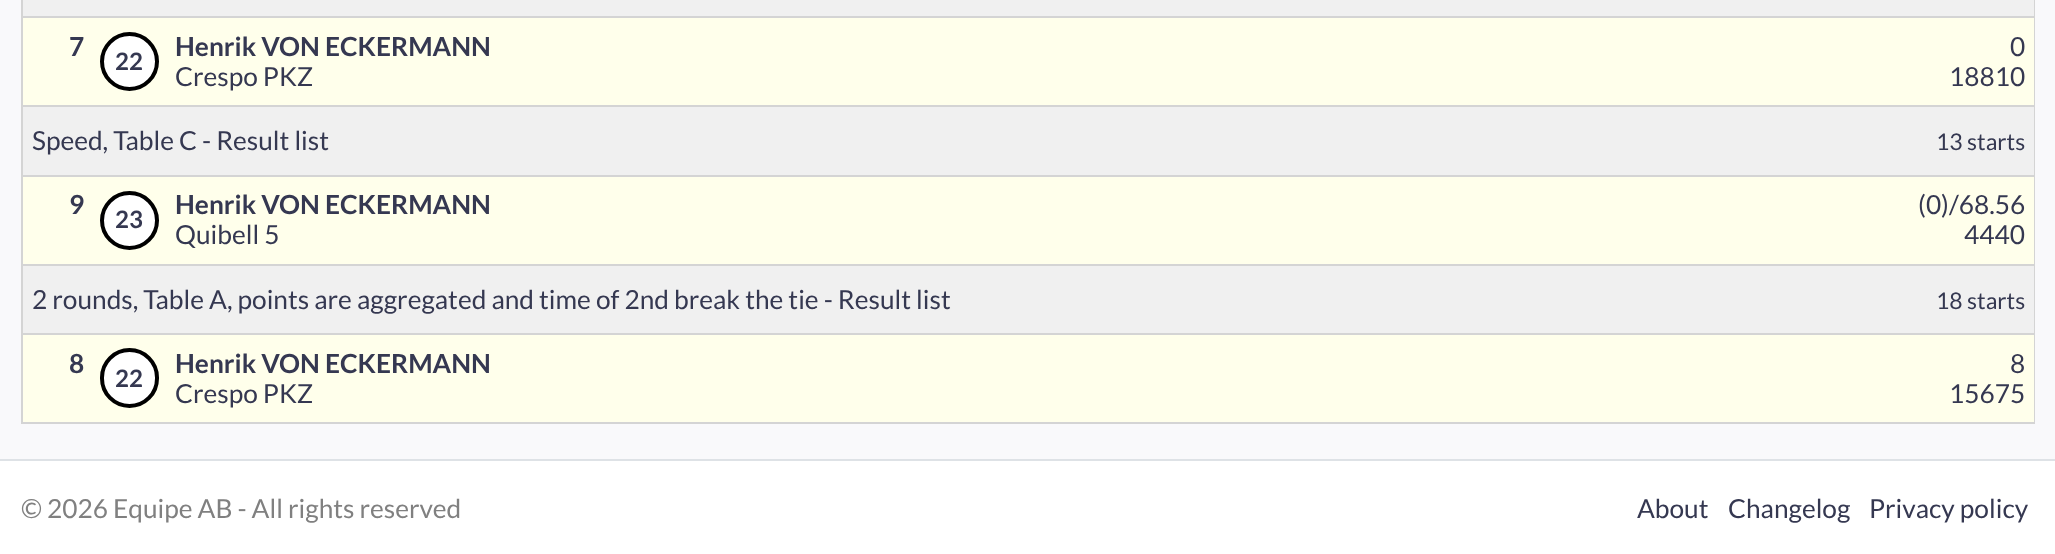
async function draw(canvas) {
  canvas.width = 2055;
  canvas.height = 554;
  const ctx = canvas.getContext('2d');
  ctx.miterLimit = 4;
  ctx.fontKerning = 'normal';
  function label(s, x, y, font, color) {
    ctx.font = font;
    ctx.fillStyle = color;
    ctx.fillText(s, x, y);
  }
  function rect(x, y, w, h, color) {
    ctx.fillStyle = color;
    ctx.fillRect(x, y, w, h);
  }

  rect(0, 0, 2055, 554, '#f9f9fb');
  ctx.strokeStyle = '#d4d4d4';
  ctx.lineWidth = 2;
  ctx.strokeRect(22, -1, 2012, 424);
  rect(23, 0, 2011, 16, '#f0f0f0');
  rect(23, 18, 2011, 87, '#ffffeb');
  rect(23, 16, 2011, 2, '#d4d4d4');
  label('7', 69, 56, 'bold 26.25px Lato', '#353851');
  ctx.fillStyle = '#fff';
  ctx.beginPath();
  ctx.arc(129.5, 61.5, 27.5, 0, 2 * Math.PI);
  ctx.fill();
  ctx.strokeStyle = '#000';
  ctx.lineWidth = 4;
  ctx.stroke();
  label('22', 115, 70, 'bold 24px Lato', '#353851');
  label('Henrik VON ECKERMANN', 175, 56, 'bold 26.25px Lato', '#353851');
  label('Crespo PKZ', 175, 86, '26.25px Lato', '#353851');
  label('0', 2010, 56, '26.25px Lato', '#353851');
  label('18810', 1949, 86, '26.25px Lato', '#353851');
  rect(23, 105, 2011, 2, '#d4d4d4');
  rect(23, 107, 2011, 68, '#f0f0f0');
  label('Speed, Table C - Result list', 32, 150, '26.25px Lato', '#353851');
  label('13 starts', 1936, 150, '23px Lato', '#353851');
  rect(23, 177, 2011, 87, '#ffffeb');
  rect(23, 175, 2011, 2, '#d4d4d4');
  label('9', 69, 214, 'bold 26.25px Lato', '#353851');
  ctx.fillStyle = '#fff';
  ctx.beginPath();
  ctx.arc(129.5, 220.5, 27.5, 0, 2 * Math.PI);
  ctx.fill();
  ctx.stroke();
  label('23', 115, 228, 'bold 24px Lato', '#353851');
  label('Henrik VON ECKERMANN', 175, 214, 'bold 26.25px Lato', '#353851');
  label('Quibell 5', 175, 244, '26.25px Lato', '#353851');
  label('(0)/68.56', 1918, 214, '26.25px Lato', '#353851');
  label('4440', 1964, 244, '26.25px Lato', '#353851');
  rect(23, 264, 2011, 2, '#d4d4d4');
  rect(23, 266, 2011, 67, '#f0f0f0');
  label('2 rounds, Table A, points are aggregated and time of 2nd break the tie - Result list', 32, 309, '26.25px Lato', '#353851');
  label('18 starts', 1936, 309, '23px Lato', '#353851');
  rect(23, 335, 2011, 87, '#ffffeb');
  rect(23, 333, 2011, 2, '#d4d4d4');
  label('8', 69, 373, 'bold 26.25px Lato', '#353851');
  ctx.fillStyle = '#fff';
  ctx.beginPath();
  ctx.roundRect(102, 350, 55, 56, 27.5);
  ctx.fill();
  ctx.stroke();
  label('22', 115, 387, 'bold 24px Lato', '#353851');
  label('Henrik VON ECKERMANN', 175, 373, 'bold 26.25px Lato', '#353851');
  label('Crespo PKZ', 175, 403, '26.25px Lato', '#353851');
  label('8', 2010, 373, '26.25px Lato', '#353851');
  label('15675', 1949, 403, '26.25px Lato', '#353851');
  rect(0, 461, 2055, 93, '#fff');
  rect(0, 459, 2055, 2, '#dee2e6');
  label('© 2026 Equipe AB - All rights reserved', 21, 518, '26.25px Lato', '#808080');
  label('About', 1637, 518, '26.25px Lato', '#353851');
  label('Changelog', 1728, 518, '26.25px Lato', '#353851');
  label('Privacy policy', 1869, 518, '26.25px Lato', '#353851');
}

draw(document.querySelector('canvas'));
